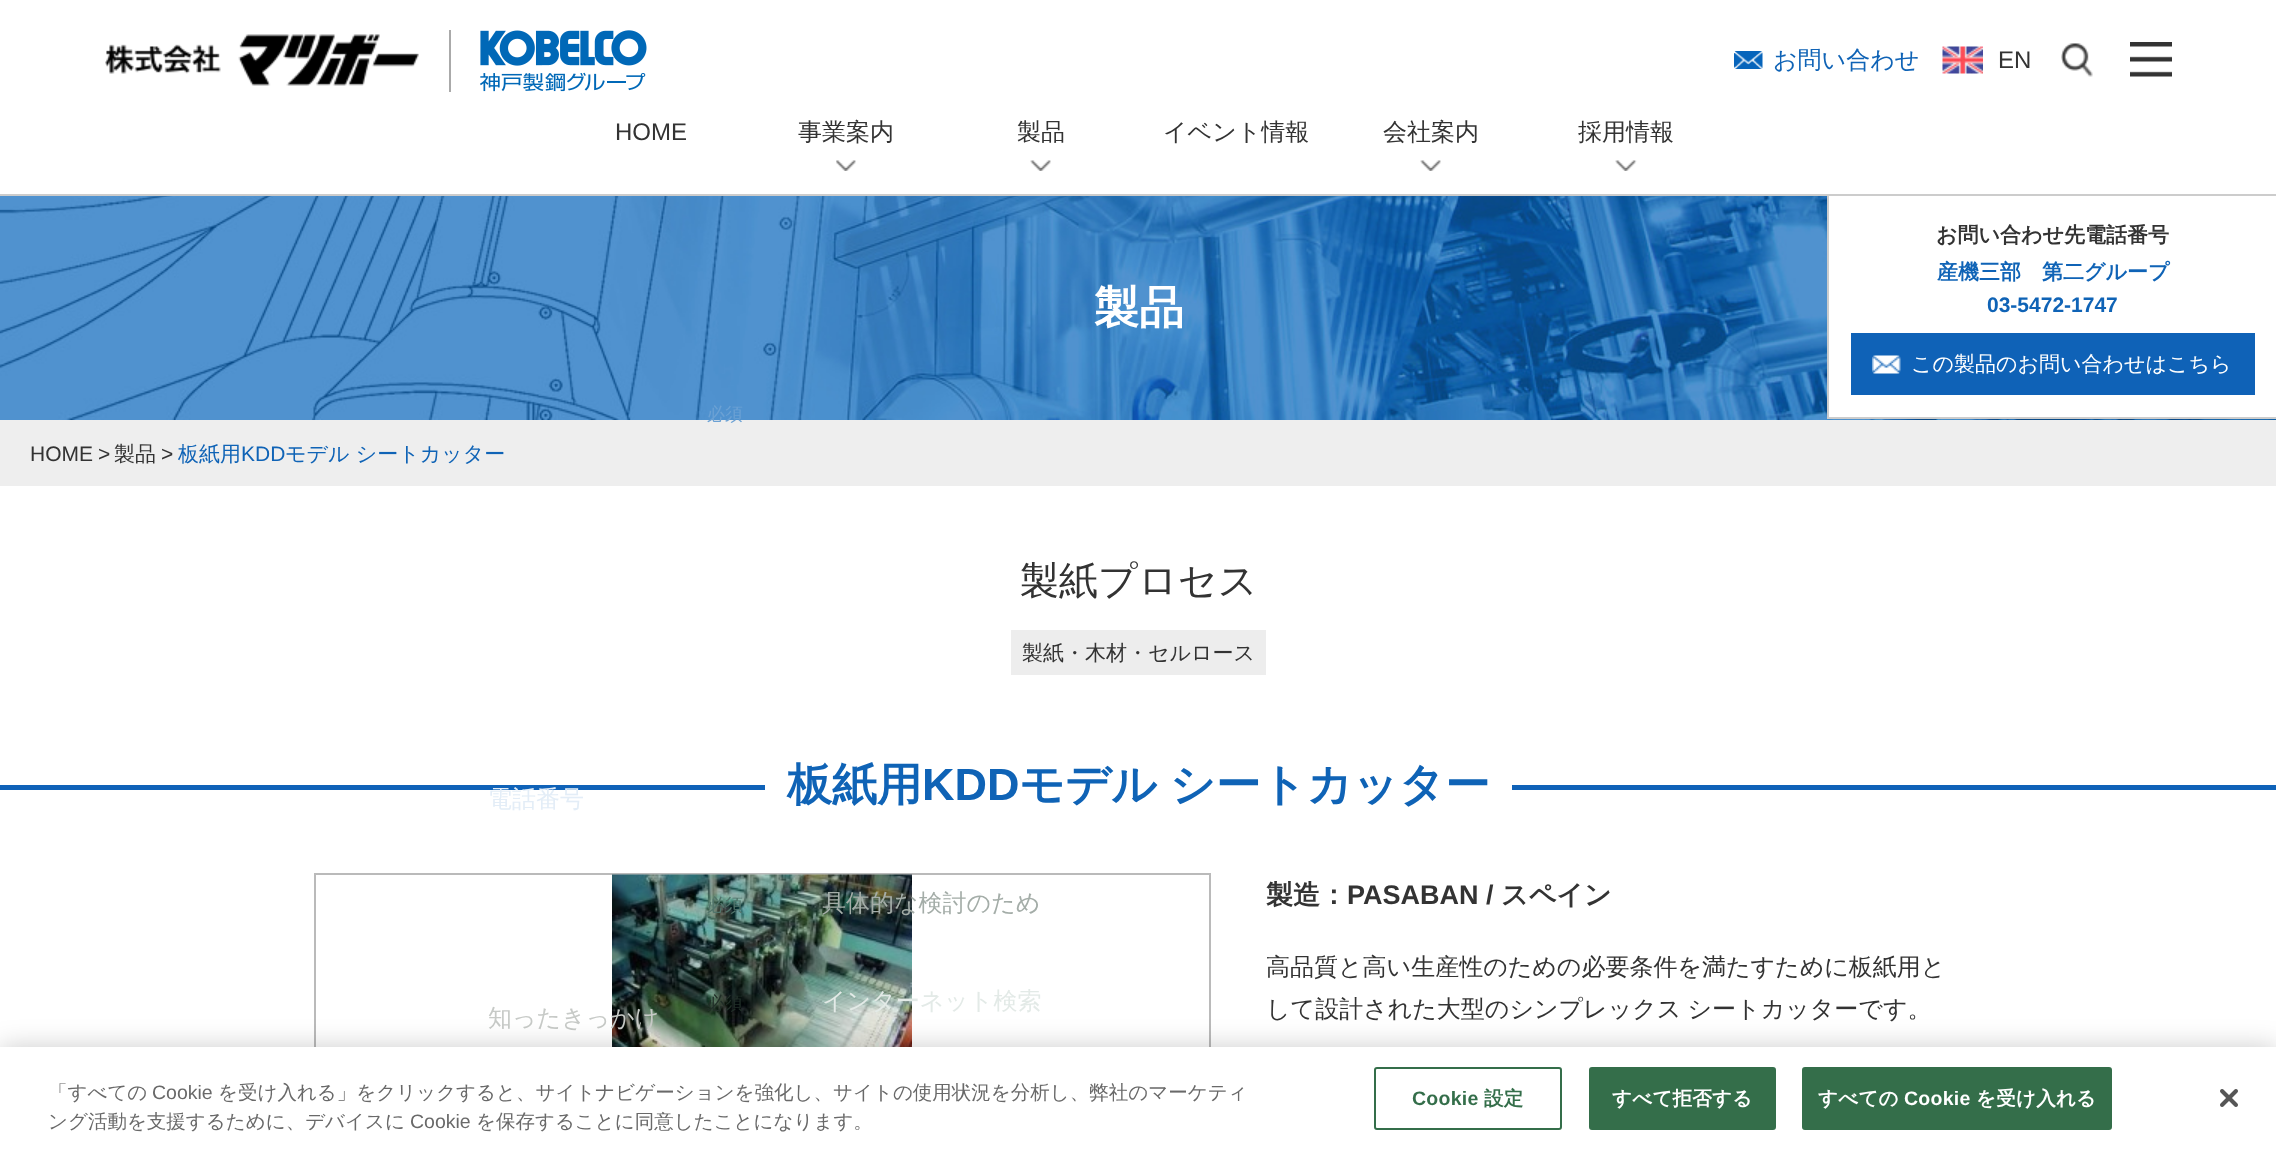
async function draw(canvas) {
  canvas.width = 2276;
  canvas.height = 1153;
  const ctx = canvas.getContext('2d');
  ctx.miterLimit = 4;
  ctx.fontKerning = 'normal';
  function label(s, x, y, font, color) {
    ctx.font = font;
    ctx.fillStyle = color;
    ctx.fillText(s, x, y);
  }
  function rect(x, y, w, h, color) {
    ctx.fillStyle = color;
    ctx.fillRect(x, y, w, h);
  }
  async function image(src, x, y, w, h) {
    const img = new Image();
    img.src = src;
    await img.decode();
    ctx.drawImage(img, x, y, w, h);
  }

  rect(0, 0, 2276, 1153, '#fff');
  await image('assets/img10.png', 0, 196, 2276, 224);
  rect(1827, 417, 449, 2, '#ccc');
  rect(1827, 194, 2, 225, '#ccc');
  rect(0, 194, 2276, 2, '#ccc');
  await image('assets/img1.png', 105, 34, 314, 52);
  rect(449, 30, 2, 62, '#aaa');
  await image('assets/img2.png', 480, 30, 167, 62);
  await image('assets/img3.png', 1734, 51, 29, 18);
  label('お問い合わせ', 1773, 68, '500 24px WenQuanYi Zen Hei', '#0f63b6');
  await image('assets/img4.png', 1942, 46, 41, 28);
  label('EN', 1998, 68, '24px Liberation Sans', '#333');
  await image('assets/img5.png', 2061, 43, 32, 34);
  await image('assets/img6.png', 2130, 42, 42, 35);
  label('HOME', 615, 140, '24px Liberation Sans', '#333');
  label('事業案内', 798, 140, '500 24px WenQuanYi Zen Hei', '#333');
  await image('assets/img7.png', 836, 160, 20, 11);
  label('製品', 1017, 140, '500 24px WenQuanYi Zen Hei', '#333');
  await image('assets/img8.png', 1030, 160, 21, 11);
  label('イベント情報', 1163, 140, '500 24px WenQuanYi Zen Hei', '#333');
  label('会社案内', 1383, 140, '500 24px WenQuanYi Zen Hei', '#333');
  await image('assets/img8.png', 1420, 160, 21, 11);
  label('採用情報', 1578, 140, '500 24px WenQuanYi Zen Hei', '#333');
  await image('assets/img9.png', 1615, 160, 22, 11);
  label('製品', 1094, 323, 'bold 45px WenQuanYi Zen Hei', '#fff');
  rect(1829, 196, 447, 221, '#fff');
  label('お問い合わせ先電話番号', 1936, 242, 'bold 21px WenQuanYi Zen Hei', '#333');
  label('産機三部　第二グループ', 1937, 279, 'bold 21px WenQuanYi Zen Hei', '#0f63b6');
  label('03-5472-1747', 1987, 312, 'bold 21px Liberation Sans', '#0f63b6');
  rect(1851, 333, 404, 62, '#0f62b7');
  await image('assets/img11.png', 1872, 355, 29, 19);
  label('この製品のお問い合わせはこちら', 1911, 371, '500 21px WenQuanYi Zen Hei', '#fff');
  rect(0, 420, 2276, 66, '#eee');
  label('HOME', 30, 461, '21px Liberation Sans', '#333');
  label('>', 98, 461, '21px Liberation Sans', '#333');
  label('製品', 114, 461, '500 21px WenQuanYi Zen Hei', '#333');
  label('>', 161, 461, '21px Liberation Sans', '#333');
  label('板紙用', 178, 461, '500 21px WenQuanYi Zen Hei', '#0f63b6');
  label('KDD', 241, 461, '21px Liberation Sans', '#0f63b6');
  label('モデル シートカッター', 285, 461, '500 21px WenQuanYi Zen Hei', '#0f63b6');
  label('製紙プロセス', 1020, 594, '500 39px WenQuanYi Zen Hei', '#333');
  rect(1011, 630, 255, 45, '#ededed');
  label('製紙・木材・セルロース', 1022, 660, '500 21px WenQuanYi Zen Hei', '#333');
  rect(0, 785, 765, 5, '#0f62b8');
  label('板紙用', 787, 800, 'bold 45px WenQuanYi Zen Hei', '#0f63b6');
  label('KDD', 922, 800, 'bold 45px Liberation Sans', '#0f63b6');
  ctx.wordSpacing = '-1px';
  label('モデル シートカッター', 1019, 800, 'bold 45px WenQuanYi Zen Hei', '#0f63b6');
  rect(1512, 785, 764, 5, '#0f62b8');
  ctx.strokeStyle = '#bababa';
  ctx.lineWidth = 2;
  ctx.strokeRect(315, 874, 895, 226);
  await image('assets/img12.png', 612, 874, 300, 173);
  ctx.wordSpacing = '0px';
  label('製造：', 1266, 904, 'bold 27px WenQuanYi Zen Hei', '#333');
  label('PASABAN /', 1347, 904, 'bold 27px Liberation Sans', '#333');
  label('スペイン', 1501, 904, 'bold 27px WenQuanYi Zen Hei', '#333');
  label('高品質と高い生産性のための必要条件を満たすために板紙用と', 1266, 975, '500 24px WenQuanYi Zen Hei', '#333');
  ctx.wordSpacing = '-1px';
  label('して設計された大型のシンプレックス シートカッターです。', 1266, 1017, '500 24px WenQuanYi Zen Hei', '#333');
  ctx.wordSpacing = '0px';
  label('必須', 707, 420, '500 18px WenQuanYi Zen Hei', '#6ba1d4');
  label('電話番号', 488, 807, '500 24px WenQuanYi Zen Hei', '#e3edf7');
  label('必須', 707, 911, '500 18px WenQuanYi Zen Hei', '#51746b');
  label('具体的な検討のため', 822, 911, '500 24px WenQuanYi Zen Hei', '#a4ada8');
  label('必須', 707, 1009, '500 18px WenQuanYi Zen Hei', '#212f28');
  label('知ったきっかけ', 488, 1026, '500 24px WenQuanYi Zen Hei', '#c7cac7');
  label('インターネット検索', 822, 1009, '500 24px WenQuanYi Zen Hei', '#e3eae7');
  ctx.fillStyle = '#00000033';
  ctx.filter = 'blur(13.5px)';
  ctx.beginPath();
  ctx.rect(0, 1047, 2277, 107);
  ctx.fill();
  ctx.filter = 'none';
  rect(0, 1047, 2276, 106, '#fff');
  label('「すべての', 48, 1099, '500 19.5px WenQuanYi Zen Hei', '#696969');
  label('Cookie', 152, 1099, '19.5px Liberation Sans', '#696969');
  label('を受け入れる」をクリックすると、サイトナビゲーションを強化し、サイトの使用状況を分析し、弊社のマーケティ', 218, 1099, '500 19.5px WenQuanYi Zen Hei', '#696969');
  label('ング活動を支援するために、デバイスに', 48, 1128, '500 19.5px WenQuanYi Zen Hei', '#696969');
  label('Cookie', 410, 1128, '19.5px Liberation Sans', '#696969');
  label('を保存することに同意したことになります。', 476, 1128, '500 19.5px WenQuanYi Zen Hei', '#696969');
  ctx.beginPath();
  ctx.roundRect(1375, 1068, 186, 61, 2);
  ctx.strokeStyle = '#346e4a';
  ctx.stroke();
  ctx.letterSpacing = '0.25px';
  label('Cookie', 1412, 1105, 'bold 19.5px Liberation Sans', '#346e4a');
  label('設定', 1484, 1105, 'bold 19.5px WenQuanYi Zen Hei', '#346e4a');
  ctx.beginPath();
  ctx.roundRect(1590, 1068, 185, 61, 2);
  ctx.fill();
  ctx.stroke();
  label('すべて拒否する', 1612, 1105, 'bold 19.5px WenQuanYi Zen Hei', '#fff');
  ctx.fillStyle = '#346e4a';
  ctx.beginPath();
  ctx.roundRect(1803, 1068, 308, 61, 2);
  ctx.fill();
  ctx.stroke();
  label('すべての', 1818, 1105, 'bold 19.5px WenQuanYi Zen Hei', '#fff');
  label('Cookie', 1904, 1105, 'bold 19.5px Liberation Sans', '#fff');
  label('を受け入れる', 1976, 1105, 'bold 19.5px WenQuanYi Zen Hei', '#fff');
  await image('assets/img13.png', 2220, 1089, 18, 18);
}

draw(document.querySelector('canvas'));
